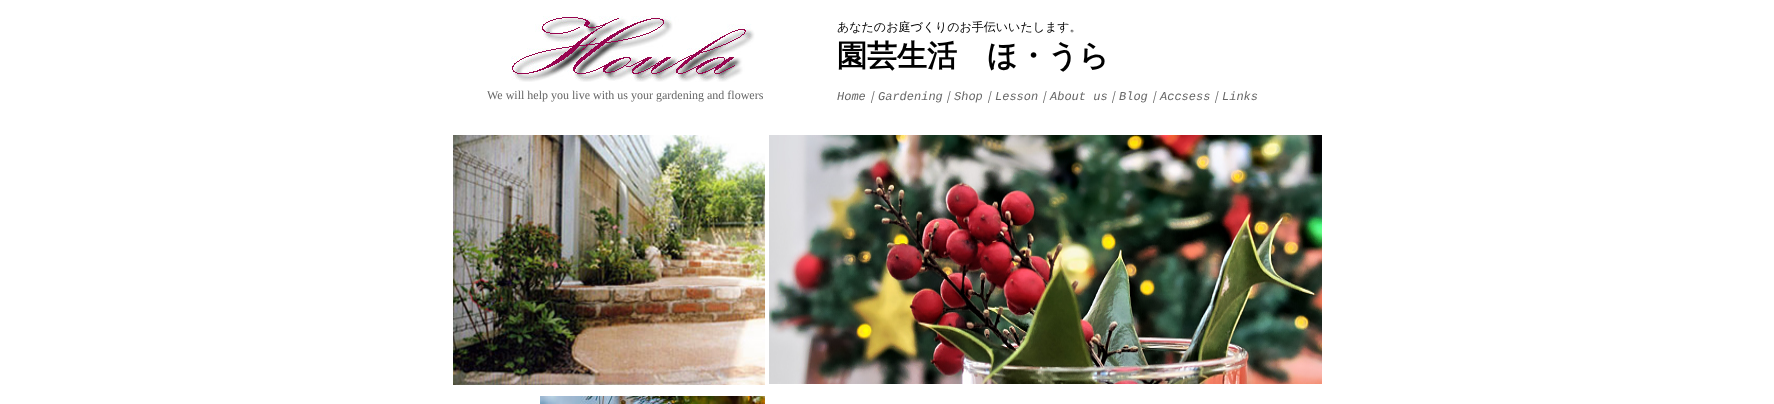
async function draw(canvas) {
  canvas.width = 1774;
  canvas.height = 404;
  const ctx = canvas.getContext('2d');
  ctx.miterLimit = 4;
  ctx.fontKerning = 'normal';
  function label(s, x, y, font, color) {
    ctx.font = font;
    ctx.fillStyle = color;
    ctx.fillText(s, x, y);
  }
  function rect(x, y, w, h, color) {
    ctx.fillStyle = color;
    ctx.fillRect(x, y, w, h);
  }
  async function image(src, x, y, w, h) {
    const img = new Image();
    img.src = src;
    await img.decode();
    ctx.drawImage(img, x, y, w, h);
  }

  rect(0, 0, 1774, 404, '#fff');
  await image('assets/img1.png', 511, 16, 244, 66);
  label('あなたのお庭づくりのお手伝いいたします。', 837, 31, '500 12px WenQuanYi Zen Hei', '#000');
  label('園芸生活　ほ・うら', 837, 66, 'bold 30px WenQuanYi Zen Hei', '#000');
  label('We will help you live with us your gardening and flowers', 487, 99, '12px Liberation Serif', '#666');
  label('Home', 837, 100, 'italic 12px Liberation Mono', '#666');
  label('｜', 866, 100, 'italic 500 12px WenQuanYi Zen Hei', '#666');
  label('Gardening', 878, 100, 'italic 12px Liberation Mono', '#666');
  label('｜', 942, 100, 'italic 500 12px WenQuanYi Zen Hei', '#666');
  label('Shop', 954, 100, 'italic 12px Liberation Mono', '#666');
  label('｜', 983, 100, 'italic 500 12px WenQuanYi Zen Hei', '#666');
  label('Lesson', 995, 100, 'italic 12px Liberation Mono', '#666');
  label('｜', 1038, 100, 'italic 500 12px WenQuanYi Zen Hei', '#666');
  label('About us', 1050, 100, 'italic 12px Liberation Mono', '#666');
  label('｜', 1107, 100, 'italic 500 12px WenQuanYi Zen Hei', '#666');
  label('Blog', 1119, 100, 'italic 12px Liberation Mono', '#666');
  label('｜', 1148, 100, 'italic 500 12px WenQuanYi Zen Hei', '#666');
  label('Accsess', 1160, 100, 'italic 12px Liberation Mono', '#666');
  label('｜', 1210, 100, 'italic 500 12px WenQuanYi Zen Hei', '#666');
  label('Links', 1222, 100, 'italic 12px Liberation Mono', '#666');
  await image('assets/img2.png', 453, 135, 312, 250);
  await image('assets/img3.png', 769, 135, 553, 249);
  await image('assets/img4.png', 540, 396, 225, 8);
}

draw(document.querySelector('canvas'));
